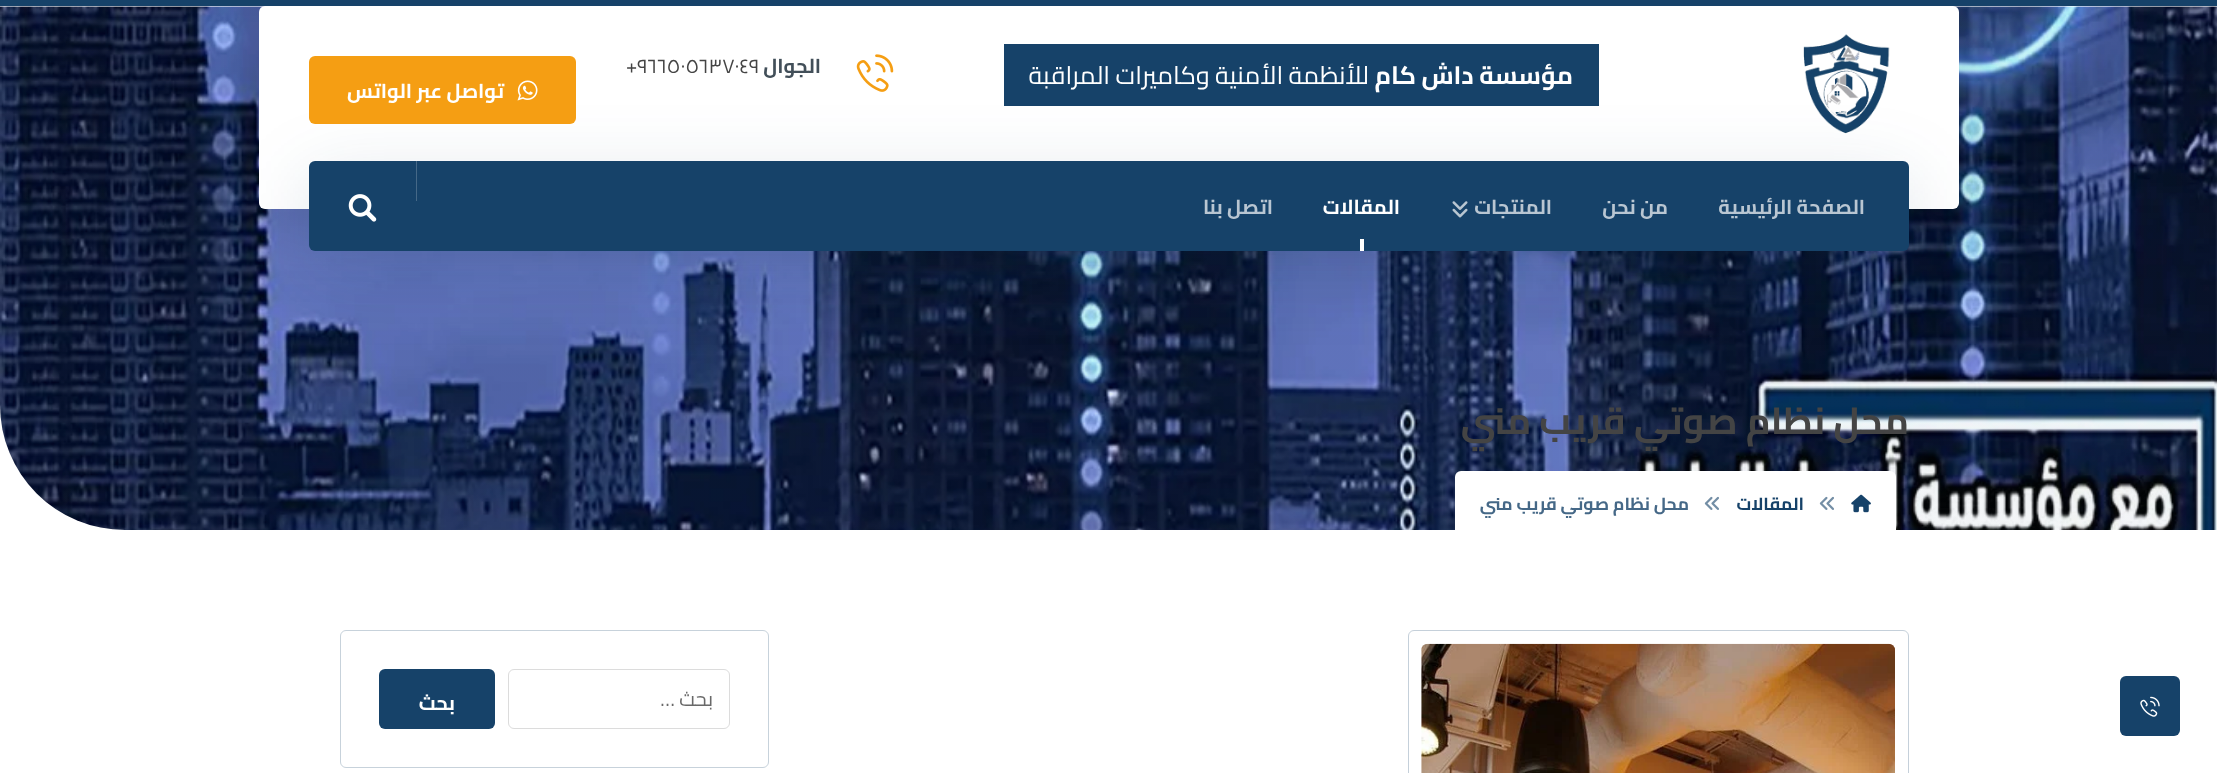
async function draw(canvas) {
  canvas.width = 2217;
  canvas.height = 773;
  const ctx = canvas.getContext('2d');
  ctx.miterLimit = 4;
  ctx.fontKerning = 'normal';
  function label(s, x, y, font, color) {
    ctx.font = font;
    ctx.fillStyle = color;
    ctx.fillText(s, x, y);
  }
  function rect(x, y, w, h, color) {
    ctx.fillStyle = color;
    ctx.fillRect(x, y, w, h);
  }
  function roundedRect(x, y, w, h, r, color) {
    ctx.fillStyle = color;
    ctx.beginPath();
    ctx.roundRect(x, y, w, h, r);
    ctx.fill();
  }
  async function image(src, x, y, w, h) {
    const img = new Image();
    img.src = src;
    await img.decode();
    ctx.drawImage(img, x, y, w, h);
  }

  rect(0, 0, 2217, 773, '#fff');
  rect(0, 0, 2217, 6, '#164269');
  roundedRect(2120, 676, 60, 60, 6, '#164269');
  await image('assets/img1.png', 2140, 696, 20, 21);
  await image('assets/img7.png', 0, 6, 2217, 524);
  ctx.save();
  ctx.beginPath();
  ctx.rect(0, 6, 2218, 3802);
  ctx.clip();
  ctx.fillStyle = '#00000026';
  ctx.filter = 'blur(37.5px)';
  ctx.beginPath();
  ctx.roundRect(259, 25, 1700, 203, 6);
  ctx.fill();
  ctx.filter = 'none';
  ctx.restore();
  roundedRect(259, 6, 1700, 203, 6, '#fff');
  await image('assets/img2.png', 1803, 34, 87, 100);
  rect(1004, 44, 595, 62, '#164269');
  ctx.direction = 'rtl';
  label('مؤسسة داش كام', 1573, 84, 'bold 25px Cairo', '#fff');
  label('للأنظمة الأمنية وكاميرات المراقبة', 1369, 84, '25px Cairo', '#fff');
  await image('assets/img3.png', 856, 54, 38, 38);
  label('الجوال', 821, 73, 'bold 20px Cairo', '#424f59');
  ctx.direction = 'ltr';
  label('+٩٦٦٥٠٥٦٣٧٠٤٩', 626, 73, '20px Cairo', '#444');
  ctx.fillStyle = '#16426926';
  ctx.filter = 'blur(37.5px)';
  ctx.beginPath();
  ctx.roundRect(309, 180, 1600, 90, 6);
  ctx.fill();
  ctx.filter = 'none';
  roundedRect(309, 56, 267, 68, 6, '#f59e13');
  await image('assets/img4.png', 517, 80, 21, 21);
  ctx.direction = 'rtl';
  label('تواصل عبر الواتس', 504, 98, 'bold 20px Cairo', '#fff');
  roundedRect(309, 161, 1600, 90, 6, '#164269');
  label('الصفحة الرئيسية', 1865, 214, 'bold 20px Cairo', '#b9c6d2');
  label('من نحن', 1668, 214, 'bold 20px Cairo', '#b9c6d2');
  label('المنتجات', 1552, 214, 'bold 20px Cairo', '#b9c6d2');
  await image('assets/img5.png', 1452, 201, 16, 17);
  label('المقالات', 1400, 214, 'bold 20px Cairo', '#fff');
  rect(1360, 239, 4, 12, '#fff');
  label('اتصل بنا', 1273, 214, 'bold 20px Cairo', '#b9c6d2');
  rect(416, 161, 1, 40, '#456887');
  await image('assets/img6.png', 348, 194, 29, 28);
  label('محل نظام صوتي قريب مني', 1909, 434, 'bold 37.5px Cairo', '#444');
  ctx.fillStyle = '#fff';
  ctx.beginPath();
  ctx.roundRect(1455, 471, 441, 59, [6, 6, 0, 0]);
  ctx.fill();
  await image('assets/img8.png', 1851, 494, 20, 19);
  await image('assets/img9.png', 1819, 496, 15, 14);
  label('المقالات', 1804, 510, 'bold 17.5px Cairo', '#164269');
  await image('assets/img9.png', 1704, 496, 15, 14);
  label('محل نظام صوتي قريب مني', 1689, 510, 'bold 17.5px Cairo', '#456887');
  ctx.beginPath();
  ctx.roundRect(1408.5, 630.5, 500, 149, 5.5);
  ctx.strokeStyle = '#c5d0da';
  ctx.stroke();
  await image('assets/img10.png', 1421, 643, 474, 130);
  ctx.beginPath();
  ctx.roundRect(340.5, 630.5, 428, 137, 5.5);
  ctx.strokeStyle = '#c7d2db';
  ctx.stroke();
  ctx.beginPath();
  ctx.roundRect(508.5, 669.5, 221, 59, 5.5);
  ctx.strokeStyle = '#dcdcdc';
  ctx.stroke();
  label('بحث …', 713, 706, '20px Cairo', '#696969');
  roundedRect(379, 669, 116, 60, 6, '#164269');
  label('بحث', 455, 710, 'bold 20px Cairo', '#fff');
}

draw(document.querySelector('canvas'));
